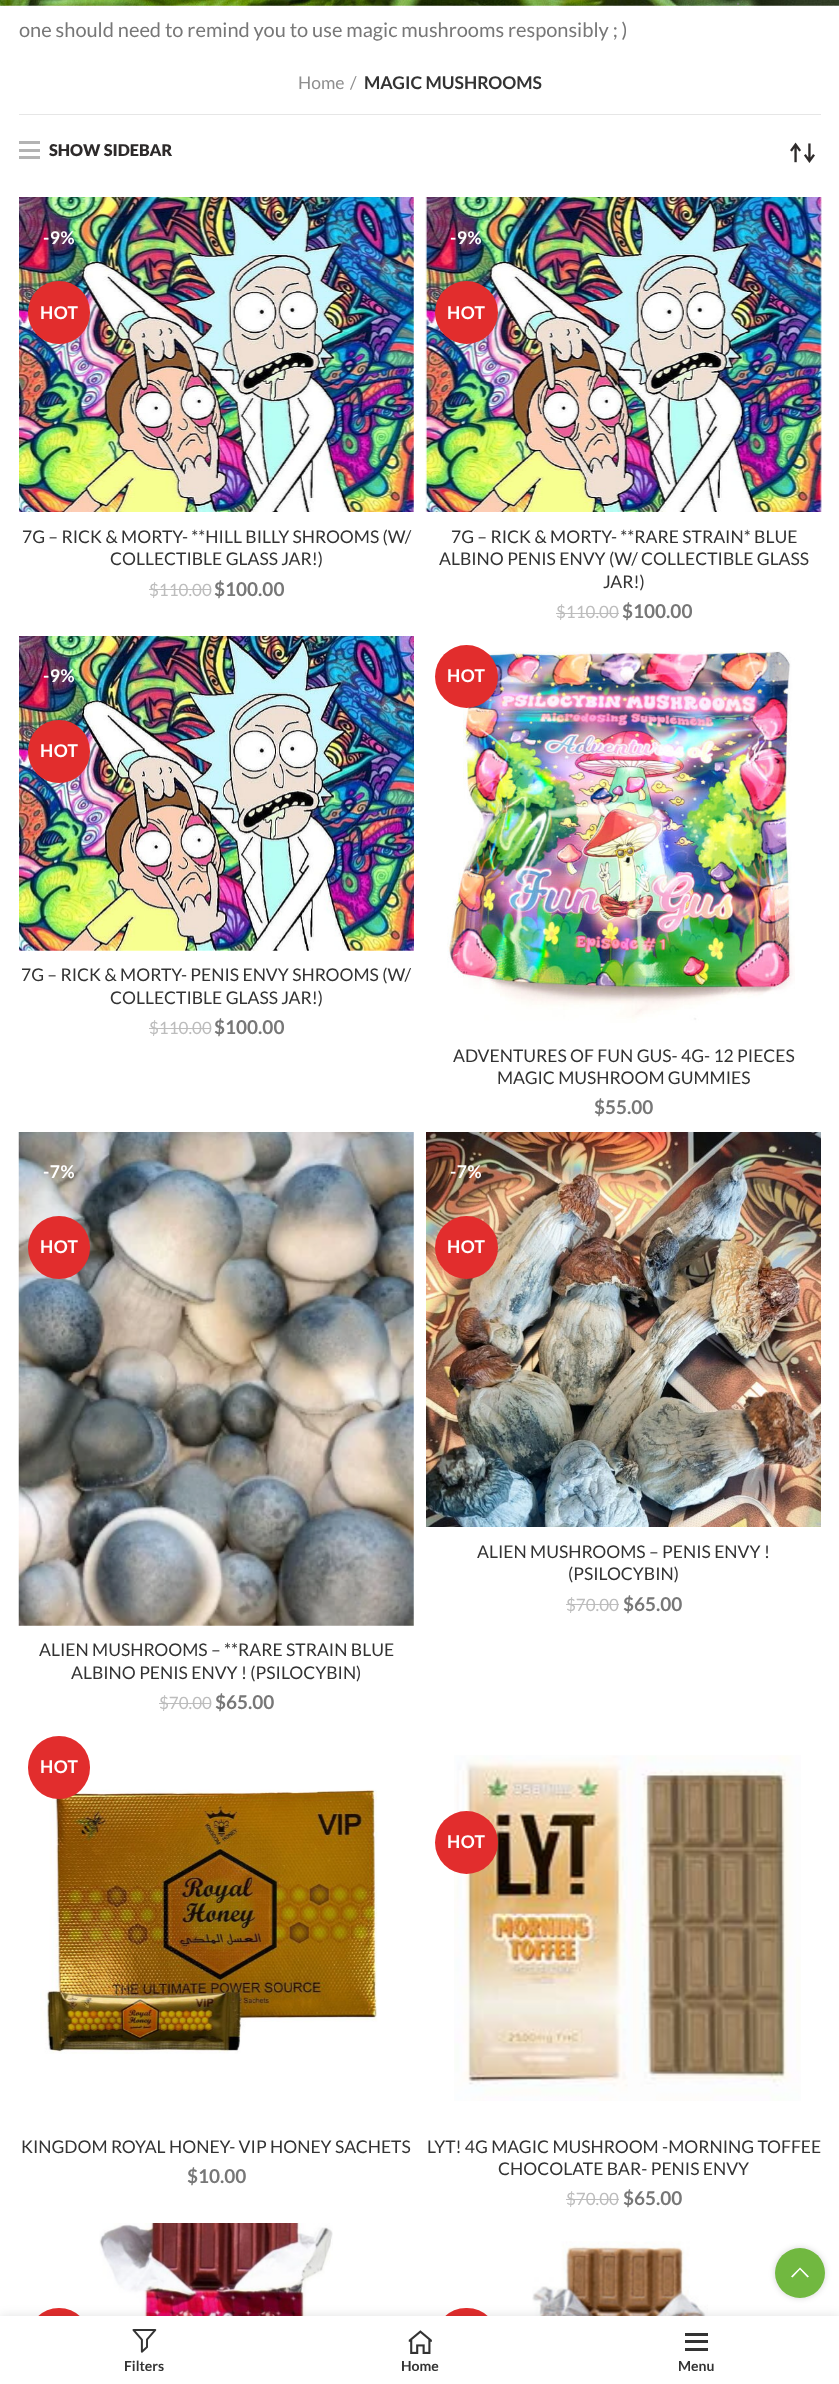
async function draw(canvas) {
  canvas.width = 839;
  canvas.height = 2384;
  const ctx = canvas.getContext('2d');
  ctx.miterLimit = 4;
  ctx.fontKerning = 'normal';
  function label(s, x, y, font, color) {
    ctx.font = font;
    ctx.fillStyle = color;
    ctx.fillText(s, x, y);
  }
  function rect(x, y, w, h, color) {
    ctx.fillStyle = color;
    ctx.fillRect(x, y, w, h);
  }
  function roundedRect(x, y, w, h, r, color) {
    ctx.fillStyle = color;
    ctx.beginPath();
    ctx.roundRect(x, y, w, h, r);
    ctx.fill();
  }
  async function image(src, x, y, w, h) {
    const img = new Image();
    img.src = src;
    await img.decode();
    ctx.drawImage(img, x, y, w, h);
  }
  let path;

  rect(0, 0, 839, 2384, '#fff');
  await image('assets/img1.png', 0, 0, 839, 6);
  label('.', 736, 5, '20px Lato', '#777');
  label('one should need to remind you to use magic mushrooms responsibly ; )', 19, 37, '20px Lato', '#777');
  rect(19, 114, 802, 1, '#e6e6e6');
  label('Home', 298, 89, '17.5px Lato', '#8e8e8e');
  label('/', 350, 89, '17.5px Lato', '#8e8e8e');
  label('MAGIC MUSHROOMS', 364, 89, 'bold 17.5px Lato', '#333');
  rect(19, 149, 21, 3, '#b3b3b3');
  rect(19, 141, 21, 3, '#b3b3b3');
  rect(19, 156, 21, 3, '#b3b3b3');
  label('SHOW SIDEBAR', 49, 156, '900 16.25px Lato', '#2d2a2a');
  await image('assets/img2.png', 790, 142, 25, 21);
  await image('assets/img3.png', 19, 197, 395, 315);
  ctx.letterSpacing = '0.5px';
  label('-9%', 43, 244, 'bold 17.5px Lato', '#fff');
  roundedRect(28, 281, 62, 63, 31, '#e22d2d');
  label('HOT', 40, 319, 'bold 17.5px Lato', '#fff');
  ctx.letterSpacing = '0px';
  label('7G – RICK & MORTY- **HILL BILLY SHROOMS (W/', 22, 543, '17.5px Lato', '#333');
  label('COLLECTIBLE GLASS JAR!)', 110, 565, '17.5px Lato', '#333');
  label('$110.00', 149, 596, '17px Lato', '#bdbdbd');
  rect(149, 589, 62, 1, '#bdbdbd');
  label('$100.00', 214, 596, 'bold 19px Lato', '#777');
  await image('assets/img4.png', 425, 197, 397, 315);
  ctx.letterSpacing = '0.5px';
  label('-9%', 450, 244, 'bold 17.5px Lato', '#fff');
  ctx.fillStyle = '#e22d2d';
  ctx.beginPath();
  ctx.arc(466.5, 312.5, 31.5, 0, 2 * Math.PI);
  ctx.fill();
  label('HOT', 447, 319, 'bold 17.5px Lato', '#fff');
  ctx.letterSpacing = '0px';
  label('7G – RICK & MORTY- **RARE STRAIN* BLUE', 451, 543, '17.5px Lato', '#333');
  label('ALBINO PENIS ENVY (W/ COLLECTIBLE GLASS', 439, 565, '17.5px Lato', '#333');
  label('JAR!)', 603, 588, '17.5px Lato', '#333');
  label('$110.00', 556, 618, '17px Lato', '#bdbdbd');
  rect(556, 613, 63, 1, '#bdbdbd');
  label('$100.00', 622, 618, 'bold 19px Lato', '#777');
  await image('assets/img5.png', 19, 636, 395, 315);
  ctx.letterSpacing = '0.5px';
  label('-9%', 43, 682, 'bold 17.5px Lato', '#fff');
  roundedRect(28, 720, 62, 63, 31, '#e22d2d');
  label('HOT', 40, 757, 'bold 17.5px Lato', '#fff');
  ctx.letterSpacing = '0px';
  label('7G – RICK & MORTY- PENIS ENVY SHROOMS (W/', 21, 981, '17.5px Lato', '#333');
  label('COLLECTIBLE GLASS JAR!)', 110, 1004, '17.5px Lato', '#333');
  label('$110.00', 149, 1034, '17px Lato', '#bdbdbd');
  rect(149, 1028, 62, 1, '#bdbdbd');
  label('$100.00', 214, 1034, 'bold 19px Lato', '#777');
  await image('assets/img6.png', 447, 651, 348, 372);
  ctx.fillStyle = '#e22d2d';
  ctx.beginPath();
  ctx.arc(466.5, 676.5, 31.5, 0, 2 * Math.PI);
  ctx.fill();
  ctx.letterSpacing = '0.5px';
  label('HOT', 447, 682, 'bold 17.5px Lato', '#fff');
  ctx.letterSpacing = '0px';
  label('ADVENTURES OF FUN GUS- 4G- 12 PIECES', 453, 1062, '17.5px Lato', '#333');
  label('MAGIC MUSHROOM GUMMIES', 497, 1084, '17.5px Lato', '#333');
  label('$55.00', 594, 1114, 'bold 19px Lato', '#777');
  await image('assets/img7.png', 18, 1132, 396, 494);
  ctx.letterSpacing = '0.5px';
  label('-7%', 43, 1178, 'bold 17.5px Lato', '#fff');
  roundedRect(28, 1216, 62, 63, 31, '#e22d2d');
  label('HOT', 40, 1253, 'bold 17.5px Lato', '#fff');
  ctx.letterSpacing = '0px';
  label('ALIEN MUSHROOMS – **RARE STRAIN BLUE', 39, 1656, '17.5px Lato', '#333');
  label('ALBINO PENIS ENVY ! (PSILOCYBIN)', 71, 1679, '17.5px Lato', '#333');
  label('$70.00', 159, 1709, '17px Lato', '#bdbdbd');
  rect(159, 1703, 52, 1, '#bdbdbd');
  label('$65.00', 215, 1709, 'bold 19px Lato', '#777');
  await image('assets/img8.png', 426, 1132, 395, 395);
  ctx.letterSpacing = '0.5px';
  label('-7%', 450, 1178, 'bold 17.5px Lato', '#fff');
  ctx.fillStyle = '#e22d2d';
  ctx.beginPath();
  ctx.arc(466.5, 1247.5, 31.5, 0, 2 * Math.PI);
  ctx.fill();
  label('HOT', 447, 1253, 'bold 17.5px Lato', '#fff');
  ctx.letterSpacing = '0px';
  label('ALIEN MUSHROOMS – PENIS ENVY !', 477, 1558, '17.5px Lato', '#333');
  label('(PSILOCYBIN)', 568, 1580, '17.5px Lato', '#333');
  label('$70.00', 566, 1611, '17px Lato', '#bdbdbd');
  rect(566, 1604, 53, 1, '#bdbdbd');
  label('$65.00', 623, 1611, 'bold 19px Lato', '#777');
  await image('assets/img9.png', 40, 1789, 338, 265);
  roundedRect(28, 1736, 62, 63, 31, '#e22d2d');
  ctx.letterSpacing = '0.5px';
  label('HOT', 40, 1773, 'bold 17.5px Lato', '#fff');
  ctx.letterSpacing = '0px';
  label('KINGDOM ROYAL HONEY- VIP HONEY SACHETS', 21, 2153, '17.5px Lato', '#333');
  label('$10.00', 187, 2183, 'bold 19px Lato', '#777');
  await image('assets/img10.png', 454, 1755, 347, 346);
  ctx.fillStyle = '#e22d2d';
  ctx.beginPath();
  ctx.arc(466.5, 1842.5, 31.5, 0, 2 * Math.PI);
  ctx.fill();
  ctx.letterSpacing = '0.5px';
  label('HOT', 447, 1848, 'bold 17.5px Lato', '#fff');
  ctx.letterSpacing = '0px';
  label('LYT! 4G MAGIC MUSHROOM -MORNING TOFFEE', 427, 2153, '17.5px Lato', '#333');
  label('CHOCOLATE BAR- PENIS ENVY', 498, 2175, '17.5px Lato', '#333');
  label('$70.00', 566, 2205, '17px Lato', '#bdbdbd');
  rect(566, 2199, 53, 1, '#bdbdbd');
  label('$65.00', 623, 2205, 'bold 19px Lato', '#777');
  await image('assets/img11.png', 99, 2223, 234, 93);
  ctx.fillStyle = '#e22d2d';
  ctx.beginPath();
  ctx.arc(59, 2339, 31, 0, 2 * Math.PI);
  ctx.fill();
  await image('assets/img12.png', 532, 2241, 176, 75);
  roundedRect(435, 2308, 63, 62, 31, '#e22d2d');
  ctx.fillStyle = '#0000002b';
  ctx.filter = 'blur(3px)';
  ctx.beginPath();
  ctx.roundRect(775, 2248, 50, 50, 25);
  ctx.fill();
  ctx.filter = 'none';
  ctx.fillStyle = '#71b840';
  ctx.beginPath();
  ctx.arc(800, 2273, 25, 0, 2 * Math.PI);
  ctx.fill();
  ctx.fillStyle = '#fff';
  path = new Path2D('M800 2267.5L809 2276.5L807.5 2277.5L800 2269.5L792.5 2277.5L791 2276.5Z');
  ctx.fill(path);
  ctx.fillStyle = '#0000001f';
  ctx.filter = 'blur(5.5px)';
  ctx.beginPath();
  ctx.rect(0, 2316, 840, 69);
  ctx.fill();
  ctx.filter = 'none';
  rect(0, 2316, 839, 68, '#fff');
  await image('assets/img13.png', 132, 2329, 25, 24);
  label('Filters', 124, 2371, 'bold 14px Lato', '#333');
  await image('assets/img14.png', 408, 2330, 24, 24);
  label('Home', 401, 2371, 'bold 14px Lato', '#333');
  rect(685, 2340, 23, 3, '#333');
  rect(685, 2333, 23, 3, '#333');
  rect(685, 2348, 23, 3, '#333');
  label('Menu', 678, 2371, 'bold 14px Lato', '#333');
}

draw(document.querySelector('canvas'));
